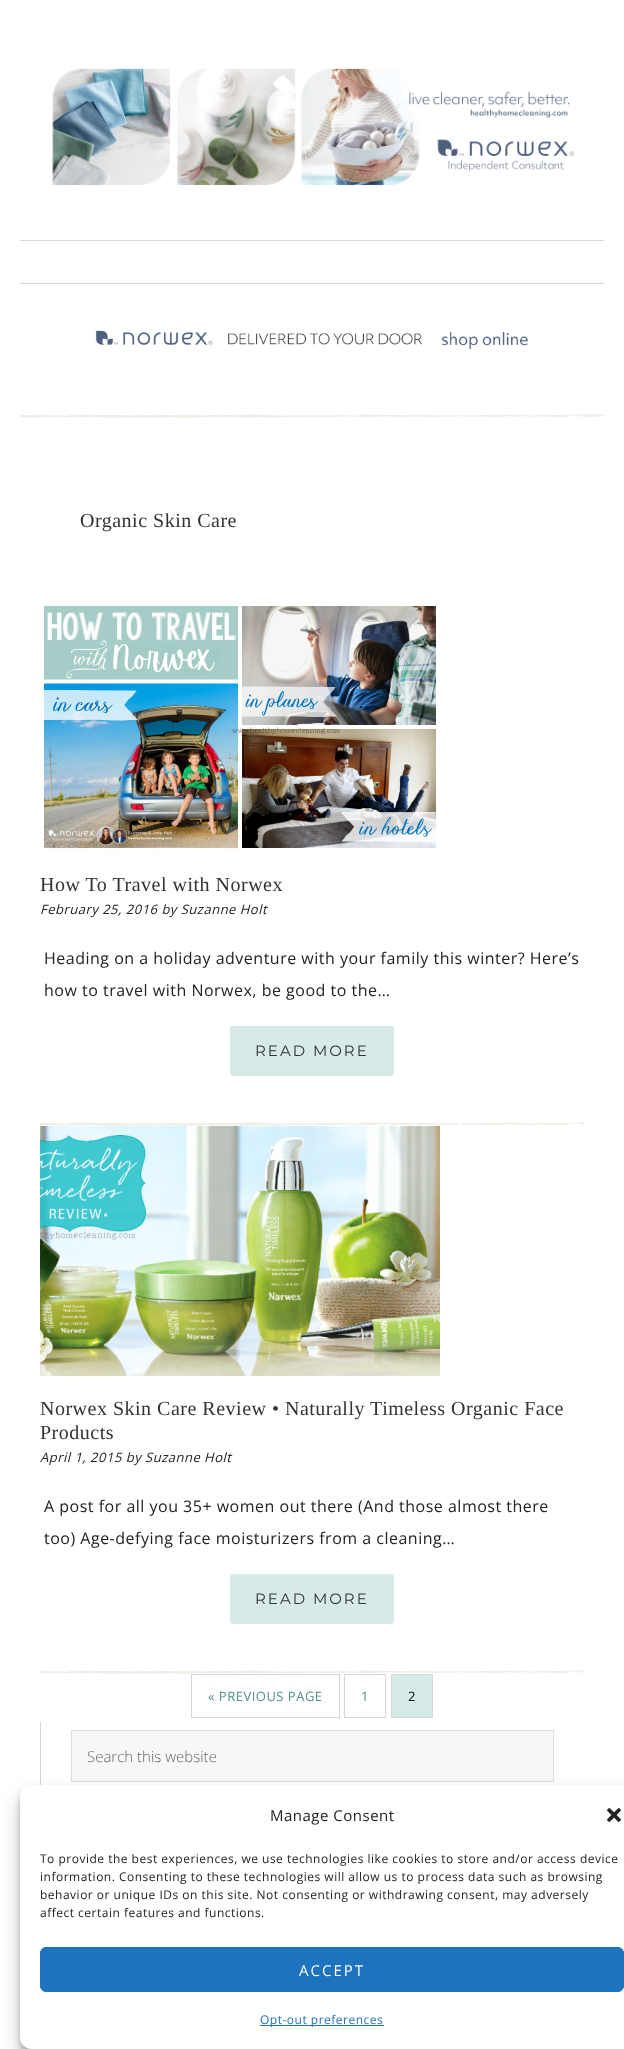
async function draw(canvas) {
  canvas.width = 624;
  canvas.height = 2049;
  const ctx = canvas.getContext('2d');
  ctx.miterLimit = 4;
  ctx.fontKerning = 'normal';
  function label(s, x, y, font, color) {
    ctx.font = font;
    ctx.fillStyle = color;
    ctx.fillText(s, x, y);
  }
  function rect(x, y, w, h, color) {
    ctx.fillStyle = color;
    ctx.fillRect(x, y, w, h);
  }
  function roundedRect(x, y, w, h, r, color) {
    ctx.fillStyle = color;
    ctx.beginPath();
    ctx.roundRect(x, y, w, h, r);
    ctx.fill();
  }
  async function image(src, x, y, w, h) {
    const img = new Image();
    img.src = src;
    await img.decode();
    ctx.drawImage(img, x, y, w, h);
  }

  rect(0, 0, 624, 2049, '#fff');
  await image('assets/img1.png', 52, 68, 523, 118);
  rect(20, 240, 584, 1, '#d7d7d7');
  rect(20, 283, 584, 1, '#d7d7d7');
  await image('assets/img2.png', 20, 414, 584, 4);
  await image('assets/img3.png', 95, 330, 433, 20);
  ctx.letterSpacing = '0.5px';
  label('Organic Skin Care', 80, 527, '20px Liberation Serif', '#333');
  await image('assets/img4.png', 44, 606, 392, 244);
  label('How To Travel with Norwex', 40, 891, '20px Liberation Serif', '#333');
  label('February 25, 2016 by Suzanne Holt', 40, 914, 'italic 13px Open Sans', '#222');
  label('Heading on a holiday adventure with your family this winter? Here’s', 44, 964, '16px Open Sans', '#222');
  label('how to travel with Norwex, be good to the…', 44, 996, '16px Open Sans', '#222');
  roundedRect(230, 1026, 164, 50, 3, '#d7eae8');
  ctx.letterSpacing = '2px';
  label('READ MORE', 255, 1056, '15px Montserrat', '#333');
  await image('assets/img5.png', 40, 1122, 544, 4);
  await image('assets/img6.png', 40, 1126, 400, 250);
  ctx.letterSpacing = '0.5px';
  label('Norwex Skin Care Review • Naturally Timeless Organic Face', 40, 1415, '20px Liberation Serif', '#333');
  label('Products', 40, 1439, '20px Liberation Serif', '#333');
  label('April 1, 2015 by Suzanne Holt', 40, 1462, 'italic 13px Open Sans', '#222');
  label('A post for all you 35+ women out there (And those almost there', 44, 1512, '16px Open Sans', '#222');
  label('too) Age-defying face moisturizers from a cleaning…', 44, 1544, '16px Open Sans', '#222');
  roundedRect(230, 1574, 164, 50, 3, '#d7eae8');
  ctx.letterSpacing = '2px';
  label('READ MORE', 255, 1604, '15px Montserrat', '#333');
  await image('assets/img5.png', 40, 1670, 544, 4);
  ctx.strokeStyle = '#d7d7d7';
  ctx.strokeRect(191.5, 1674.5, 148, 43);
  ctx.letterSpacing = '0.5px';
  label('« PREVIOUS PAGE', 208, 1701, '13px Open Sans', '#528f89');
  ctx.strokeRect(344.5, 1674.5, 41, 43);
  label('1', 361, 1701, '13px Open Sans', '#528f89');
  ctx.fillStyle = '#d6eae8';
  ctx.beginPath();
  ctx.rect(391.5, 1674.5, 41, 43);
  ctx.fill();
  ctx.stroke();
  label('2', 408, 1701, '13px Open Sans', '#111');
  rect(40, 1722, 1, 63, '#d7d7d7');
  ctx.fillStyle = '#f7f7f7';
  ctx.beginPath();
  ctx.rect(71.5, 1730.5, 482, 51);
  ctx.fill();
  ctx.strokeStyle = '#ddd';
  ctx.stroke();
  ctx.letterSpacing = '0px';
  label('Search this website', 87, 1762, '300 15px Open Sans', '#666');
  ctx.fillStyle = '#0000003b';
  ctx.filter = 'blur(3px)';
  ctx.beginPath();
  ctx.roundRect(20, 1791, 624, 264, 12);
  ctx.fill();
  ctx.filter = 'none';
  ctx.fillStyle = '#00000030';
  ctx.filter = 'blur(10px)';
  ctx.beginPath();
  ctx.roundRect(20, 1795, 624, 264, 12);
  ctx.fill();
  ctx.filter = 'none';
  roundedRect(20, 1785, 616, 264, 12, '#fff');
  ctx.letterSpacing = '0.5px';
  label('Manage Consent', 270, 1821, '15px Open Sans', '#222');
  await image('assets/img7.png', 607, 1808, 14, 14);
  label('To provide the best experiences, we use technologies like cookies to store and/or access device', 40, 1863, '12px Open Sans', '#222');
  label('information. Consenting to these technologies will allow us to process data such as browsing', 40, 1881, '12px Open Sans', '#222');
  label('behavior or unique IDs on this site. Not consenting or withdrawing consent, may adversely', 40, 1899, '12px Open Sans', '#222');
  label('affect certain features and functions.', 40, 1917, '12px Open Sans', '#222');
  ctx.fillStyle = '#1e73be';
  ctx.beginPath();
  ctx.roundRect(40.5, 1947.5, 583, 44, 5.5);
  ctx.fill();
  ctx.strokeStyle = '#1e73be';
  ctx.stroke();
  ctx.letterSpacing = '2px';
  label('ACCEPT', 299, 1976, '15px Open Sans', '#fff');
  rect(260, 2025, 124, 1, '#1e73be');
  ctx.letterSpacing = '0.5px';
  label('Opt-out preferences', 260, 2024, '12px Open Sans', '#1e73be');
}

draw(document.querySelector('canvas'));
